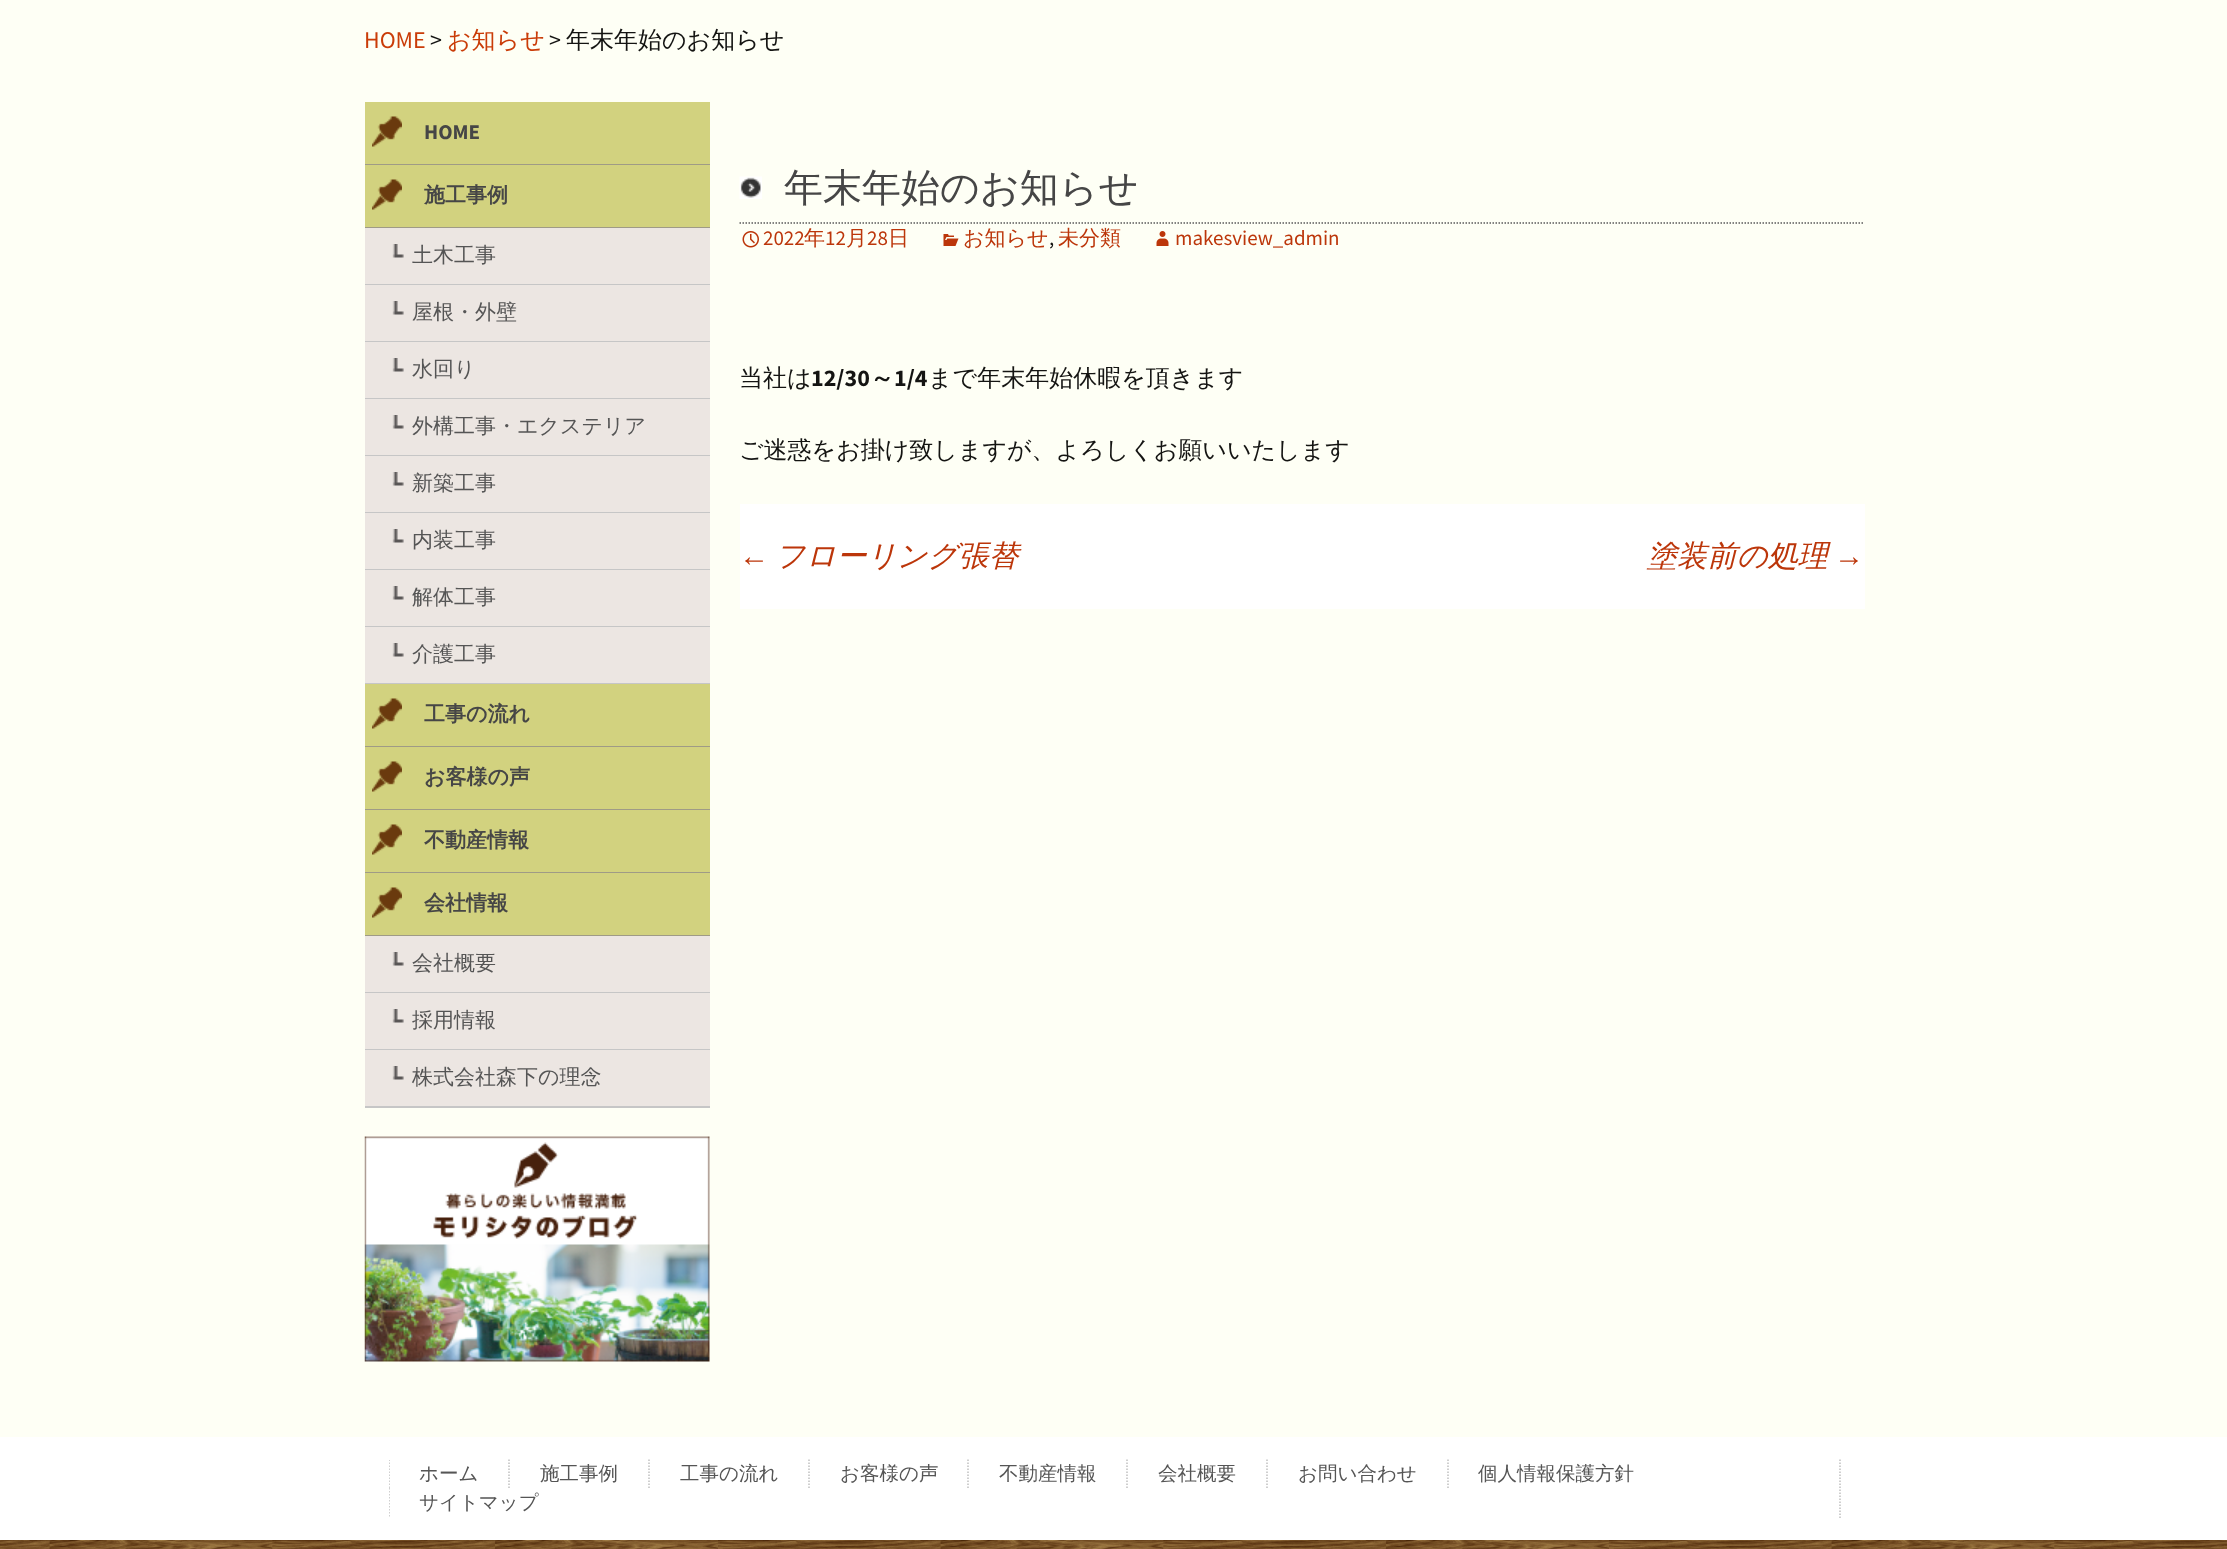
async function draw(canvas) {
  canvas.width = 2227;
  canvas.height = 1549;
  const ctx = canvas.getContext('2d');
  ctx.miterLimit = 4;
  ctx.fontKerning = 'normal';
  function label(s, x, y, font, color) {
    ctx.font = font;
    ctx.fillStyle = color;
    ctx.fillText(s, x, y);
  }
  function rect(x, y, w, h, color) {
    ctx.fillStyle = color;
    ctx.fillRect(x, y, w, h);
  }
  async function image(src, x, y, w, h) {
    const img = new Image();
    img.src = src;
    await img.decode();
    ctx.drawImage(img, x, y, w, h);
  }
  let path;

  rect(0, 0, 2227, 1549, '#fff');
  rect(0, 0, 2227, 1437, '#fefff5');
  label('HOME', 364, 48, '24px Source Sans Pro', '#ca3c08');
  label('>', 430, 48, '24px Source Sans Pro', '#141412');
  label('お知らせ', 447, 48, '500 24px WenQuanYi Zen Hei', '#ca3c08');
  label('>', 549, 48, '24px Source Sans Pro', '#141412');
  label('年末年始のお知らせ', 566, 48, '500 24px WenQuanYi Zen Hei', '#141412');
  rect(365, 102, 345, 62, '#d2d27f');
  await image('assets/img1.png', 372, 116, 30, 31);
  rect(365, 164, 345, 1, '#9f9b86');
  label('HOME', 424, 139, 'bold 21px Source Sans Pro', '#464646');
  rect(365, 165, 345, 62, '#d2d27f');
  await image('assets/img1.png', 372, 179, 30, 31);
  rect(365, 227, 345, 1, '#9f9b86');
  label('施工事例', 424, 202, 'bold 21px WenQuanYi Zen Hei', '#464646');
  rect(365, 228, 345, 56, '#ece6e2');
  await image('assets/img2.png', 392, 244, 12, 14);
  rect(365, 284, 345, 1, '#c6c6c6');
  label('土木工事', 412, 262, '500 21px WenQuanYi Zen Hei', '#555');
  rect(365, 285, 345, 56, '#ece6e2');
  await image('assets/img2.png', 392, 301, 12, 14);
  rect(365, 341, 345, 1, '#c6c6c6');
  label('屋根・外壁', 412, 319, '500 21px WenQuanYi Zen Hei', '#555');
  rect(365, 342, 345, 56, '#ece6e2');
  await image('assets/img2.png', 392, 358, 12, 14);
  rect(365, 398, 345, 1, '#c6c6c6');
  label('水回り', 412, 376, '500 21px WenQuanYi Zen Hei', '#555');
  rect(365, 399, 345, 56, '#ece6e2');
  await image('assets/img2.png', 392, 415, 12, 14);
  rect(365, 455, 345, 1, '#c6c6c6');
  label('外構工事・エクステリア', 412, 433, '500 21px WenQuanYi Zen Hei', '#555');
  rect(365, 456, 345, 56, '#ece6e2');
  await image('assets/img2.png', 392, 472, 12, 14);
  rect(365, 512, 345, 1, '#c6c6c6');
  label('新築工事', 412, 490, '500 21px WenQuanYi Zen Hei', '#555');
  rect(365, 513, 345, 56, '#ece6e2');
  await image('assets/img2.png', 392, 529, 12, 14);
  rect(365, 569, 345, 1, '#c6c6c6');
  label('内装工事', 412, 547, '500 21px WenQuanYi Zen Hei', '#555');
  rect(365, 570, 345, 56, '#ece6e2');
  await image('assets/img2.png', 392, 586, 12, 14);
  rect(365, 626, 345, 1, '#c6c6c6');
  label('解体工事', 412, 604, '500 21px WenQuanYi Zen Hei', '#555');
  rect(365, 627, 345, 56, '#ece6e2');
  await image('assets/img2.png', 392, 643, 12, 14);
  rect(365, 683, 345, 1, '#c6c6c6');
  label('介護工事', 412, 661, '500 21px WenQuanYi Zen Hei', '#555');
  rect(365, 684, 345, 62, '#d2d27f');
  await image('assets/img1.png', 372, 698, 30, 31);
  rect(365, 746, 345, 1, '#9f9b86');
  label('工事の流れ', 424, 721, 'bold 21px WenQuanYi Zen Hei', '#464646');
  rect(365, 747, 345, 62, '#d2d27f');
  await image('assets/img1.png', 372, 761, 30, 31);
  rect(365, 809, 345, 1, '#9f9b86');
  label('お客様の声', 424, 784, 'bold 21px WenQuanYi Zen Hei', '#464646');
  rect(365, 810, 345, 62, '#d2d27f');
  await image('assets/img1.png', 372, 824, 30, 31);
  rect(365, 872, 345, 1, '#9f9b86');
  label('不動産情報', 424, 847, 'bold 21px WenQuanYi Zen Hei', '#464646');
  rect(365, 873, 345, 62, '#d2d27f');
  await image('assets/img1.png', 372, 887, 30, 31);
  rect(365, 935, 345, 1, '#9f9b86');
  label('会社情報', 424, 910, 'bold 21px WenQuanYi Zen Hei', '#464646');
  rect(365, 936, 345, 56, '#ece6e2');
  await image('assets/img2.png', 392, 952, 12, 14);
  rect(365, 992, 345, 1, '#c6c6c6');
  label('会社概要', 412, 970, '500 21px WenQuanYi Zen Hei', '#555');
  rect(365, 993, 345, 56, '#ece6e2');
  await image('assets/img2.png', 392, 1009, 12, 14);
  rect(365, 1049, 345, 1, '#c6c6c6');
  label('採用情報', 412, 1027, '500 21px WenQuanYi Zen Hei', '#555');
  rect(365, 1050, 345, 56, '#ece6e2');
  await image('assets/img2.png', 392, 1066, 12, 14);
  rect(365, 1106, 345, 2, '#c6c6c6');
  label('株式会社森下の理念', 412, 1084, '500 21px WenQuanYi Zen Hei', '#555');
  await image('assets/img3.png', 364, 1136, 346, 226);
  await image('assets/img4.png', 739, 176, 23, 23);
  path = new Path2D('M739.5 223H1864.5');
  ctx.strokeStyle = '#595959';
  ctx.lineWidth = 1.5;
  ctx.setLineDash([1.5, 1.5]);
  ctx.stroke(path);
  label('年末年始のお知らせ', 784, 201, '500 39px WenQuanYi Zen Hei', '#464646');
  await image('assets/img5.png', 742, 231, 17, 17);
  label('2022', 763, 245, '21px Source Sans Pro', '#bc360a');
  label('年', 804, 245, '500 21px WenQuanYi Zen Hei', '#bc360a');
  label('12', 825, 245, '21px Source Sans Pro', '#bc360a');
  label('月', 846, 245, '500 21px WenQuanYi Zen Hei', '#bc360a');
  label('28', 867, 245, '21px Source Sans Pro', '#bc360a');
  label('日', 888, 245, '500 21px WenQuanYi Zen Hei', '#bc360a');
  await image('assets/img6.png', 943, 234, 16, 12);
  label('お知らせ', 963, 245, '500 21px WenQuanYi Zen Hei', '#bc360a');
  label(',', 1049, 245, '21px Source Sans Pro', '#141412');
  label('未分類', 1058, 245, '500 21px WenQuanYi Zen Hei', '#bc360a');
  await image('assets/img7.png', 1156, 231, 13, 15);
  label('makesview_admin', 1175, 245, '21px Source Sans Pro', '#bc360a');
  label('当社は', 739, 386, '500 24px WenQuanYi Zen Hei', '#141412');
  label('12/30', 811, 386, 'bold 24px Source Sans Pro', '#141412');
  label('～', 870, 386, 'bold 24px WenQuanYi Zen Hei', '#141412');
  label('1/4', 894, 386, 'bold 24px Source Sans Pro', '#141412');
  label('まで年末年始休暇を頂きます', 928, 386, '500 24px WenQuanYi Zen Hei', '#141412');
  label('ご迷惑をお掛け致しますが、よろしくお願いいたします', 739, 458, '500 24px WenQuanYi Zen Hei', '#141412');
  rect(740, 504, 1125, 105, '#fff');
  label('←', 739, 566, 'italic 30px Liberation Sans', '#bc360a');
  label('フローリング張替', 775, 566, 'italic 500 30px WenQuanYi Zen Hei', '#bc360a');
  label('塗装前の処理', 1647, 566, 'italic 500 30px WenQuanYi Zen Hei', '#bc360a');
  label('→', 1834, 566, 'italic 30px Liberation Sans', '#bc360a');
  path = new Path2D('M1840 1459.5V1518');
  ctx.strokeStyle = '#c0c0c0';
  ctx.stroke(path);
  ctx.save();
  ctx.beginPath();
  ctx.rect(389, 1460, 1450, 58);
  ctx.clip();
  path = new Path2D('M389 1459.5V1488');
  ctx.stroke(path);
  ctx.restore();
  label('ホーム', 419, 1480, '500 19.5px WenQuanYi Zen Hei', '#555');
  path = new Path2D('M509 1459.5V1488');
  ctx.stroke(path);
  label('施工事例', 540, 1480, '500 19.5px WenQuanYi Zen Hei', '#555');
  path = new Path2D('M649 1459.5V1488');
  ctx.stroke(path);
  label('工事の流れ', 680, 1480, '500 19.5px WenQuanYi Zen Hei', '#555');
  path = new Path2D('M809 1459.5V1488');
  ctx.stroke(path);
  label('お客様の声', 840, 1480, '500 19.5px WenQuanYi Zen Hei', '#555');
  path = new Path2D('M968 1459.5V1488');
  ctx.stroke(path);
  label('不動産情報', 999, 1480, '500 19.5px WenQuanYi Zen Hei', '#555');
  path = new Path2D('M1127 1459.5V1488');
  ctx.stroke(path);
  label('会社概要', 1158, 1480, '500 19.5px WenQuanYi Zen Hei', '#555');
  path = new Path2D('M1267 1459.5V1488');
  ctx.stroke(path);
  label('お問い合わせ', 1298, 1480, '500 19.5px WenQuanYi Zen Hei', '#555');
  path = new Path2D('M1448 1459.5V1488');
  ctx.stroke(path);
  label('個人情報保護方針', 1478, 1480, '500 19.5px WenQuanYi Zen Hei', '#555');
  ctx.save();
  ctx.beginPath();
  ctx.rect(389, 1460, 1450, 58);
  ctx.clip();
  path = new Path2D('M389 1488V1518');
  ctx.stroke(path);
  ctx.restore();
  label('サイトマップ', 419, 1509, '500 19.5px WenQuanYi Zen Hei', '#555');
  await image('assets/img8.png', 0, 1540, 2227, 9);
}

draw(document.querySelector('canvas'));
